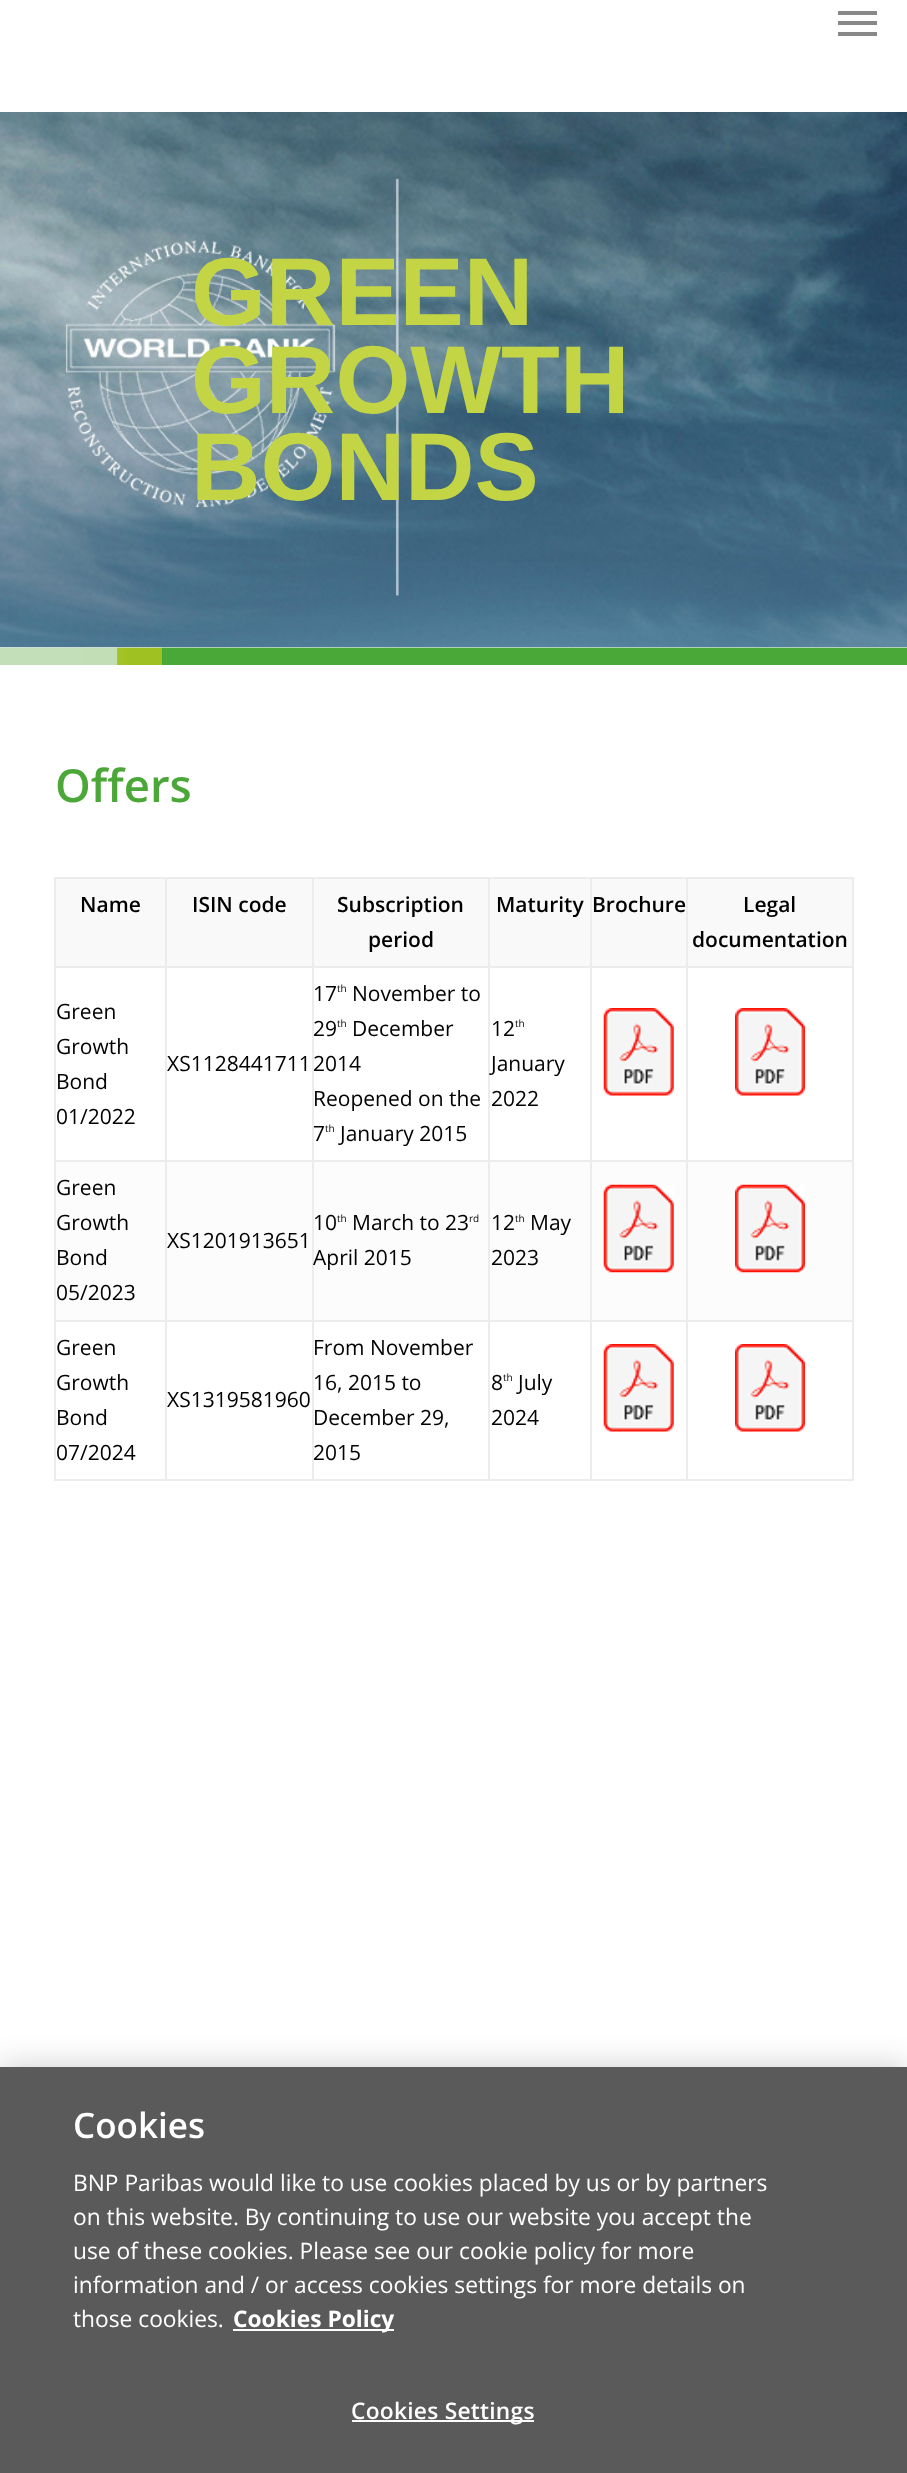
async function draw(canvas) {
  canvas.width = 907;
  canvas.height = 2473;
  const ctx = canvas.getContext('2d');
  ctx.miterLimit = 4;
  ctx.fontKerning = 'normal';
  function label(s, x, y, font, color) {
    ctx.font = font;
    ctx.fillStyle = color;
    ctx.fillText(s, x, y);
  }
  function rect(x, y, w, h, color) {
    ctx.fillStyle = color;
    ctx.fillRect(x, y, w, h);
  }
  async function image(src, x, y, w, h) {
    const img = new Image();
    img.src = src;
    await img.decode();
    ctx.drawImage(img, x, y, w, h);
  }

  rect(0, 0, 907, 2473, '#fff');
  rect(838, 11, 39, 4, '#888');
  rect(838, 32, 39, 4, '#888');
  rect(838, 21, 39, 4, '#888');
  await image('assets/img1.png', 0, 112, 907, 536);
  label('GREEN', 191, 325, 'bold 96.25px Liberation Sans', '#c3d544');
  label('GROWTH', 191, 413, 'bold 96.25px Liberation Sans', '#c3d544');
  label('BONDS', 191, 500, 'bold 96.25px Liberation Sans', '#c3d544');
  await image('assets/img2.png', 0, 647, 907, 18);
  label('Offers', 55, 802, '600 45.5px Open Sans', '#4ba838');
  rect(54, 877, 800, 2, '#ececec');
  rect(56, 879, 109, 87, '#f9f9f9');
  rect(56, 1162, 796, 158, '#fcfcfc');
  rect(852, 877, 2, 604, '#ececec');
  rect(686, 1479, 168, 2, '#ececec');
  rect(686, 1320, 2, 161, '#ececec');
  rect(686, 1320, 168, 2, '#ececec');
  rect(686, 1160, 2, 161, '#ececec');
  rect(686, 1160, 168, 2, '#ececec');
  rect(686, 966, 2, 196, '#ececec');
  rect(686, 966, 168, 2, '#ececec');
  rect(686, 877, 2, 91, '#ececec');
  rect(590, 1479, 98, 2, '#ececec');
  rect(590, 1320, 2, 161, '#ececec');
  rect(590, 1320, 98, 2, '#ececec');
  rect(590, 1160, 2, 161, '#ececec');
  rect(590, 1160, 98, 2, '#ececec');
  rect(590, 966, 2, 196, '#ececec');
  rect(590, 966, 98, 2, '#ececec');
  rect(590, 877, 2, 91, '#ececec');
  rect(488, 1479, 104, 2, '#ececec');
  rect(488, 1320, 2, 161, '#ececec');
  rect(488, 1320, 104, 2, '#ececec');
  rect(488, 1160, 2, 161, '#ececec');
  rect(488, 1160, 104, 2, '#ececec');
  rect(488, 966, 2, 196, '#ececec');
  rect(488, 966, 104, 2, '#ececec');
  rect(488, 877, 2, 91, '#ececec');
  rect(312, 1479, 178, 2, '#ececec');
  rect(312, 1320, 2, 161, '#ececec');
  rect(312, 1320, 178, 2, '#ececec');
  rect(312, 1160, 2, 161, '#ececec');
  rect(312, 1160, 178, 2, '#ececec');
  rect(312, 966, 2, 196, '#ececec');
  rect(312, 966, 178, 2, '#ececec');
  rect(312, 877, 2, 91, '#ececec');
  rect(165, 1479, 148, 2, '#ececec');
  rect(165, 1320, 2, 161, '#ececec');
  rect(165, 1320, 148, 2, '#ececec');
  rect(165, 1160, 2, 161, '#ececec');
  rect(165, 1160, 148, 2, '#ececec');
  rect(165, 966, 2, 196, '#ececec');
  rect(165, 966, 148, 2, '#ececec');
  rect(165, 877, 2, 91, '#ececec');
  rect(54, 1479, 112, 2, '#ececec');
  rect(54, 1320, 2, 161, '#ececec');
  rect(54, 1320, 112, 2, '#ececec');
  rect(54, 1160, 2, 161, '#ececec');
  rect(54, 1160, 112, 2, '#ececec');
  rect(54, 966, 2, 196, '#ececec');
  rect(54, 966, 112, 2, '#ececec');
  rect(54, 877, 2, 91, '#ececec');
  label('Name', 80, 912, '600 21px Open Sans', '#000');
  rect(167, 879, 145, 87, '#f9f9f9');
  label('ISIN code', 192, 912, '600 21px Open Sans', '#000');
  rect(314, 879, 174, 87, '#f9f9f9');
  label('Subscription', 337, 912, '600 21px Open Sans', '#000');
  label('period', 368, 947, '600 21px Open Sans', '#000');
  rect(490, 879, 100, 87, '#f9f9f9');
  label('Maturity', 496, 912, '600 21px Open Sans', '#000');
  rect(592, 879, 94, 87, '#f9f9f9');
  label('Brochure', 592, 912, '600 21px Open Sans', '#000');
  rect(688, 879, 164, 87, '#f9f9f9');
  label('Legal', 743, 912, '600 21px Open Sans', '#000');
  label('documentation', 692, 947, '600 21px Open Sans', '#000');
  label('Green', 56, 1019, '21px Open Sans', '#000');
  label('Growth', 56, 1054, '21px Open Sans', '#000');
  label('Bond', 56, 1089, '21px Open Sans', '#000');
  label('01/2022', 56, 1124, '21px Open Sans', '#000');
  label('XS1128441711', 167, 1071, '21px Open Sans', '#000');
  label('17', 313, 1001, '21px Open Sans', '#000');
  label('th', 337, 992, '10px Open Sans', '#000');
  label('November to', 352, 1001, '21px Open Sans', '#000');
  label('29', 313, 1036, '21px Open Sans', '#000');
  label('th', 337, 1027, '10px Open Sans', '#000');
  label('December', 352, 1036, '21px Open Sans', '#000');
  label('2014', 313, 1071, '21px Open Sans', '#000');
  label('Reopened on the', 313, 1106, '21px Open Sans', '#000');
  label('7', 313, 1141, '21px Open Sans', '#000');
  label('th', 325, 1132, '10px Open Sans', '#000');
  label('January 2015', 340, 1141, '21px Open Sans', '#000');
  label('12', 491, 1036, '21px Open Sans', '#000');
  label('th', 515, 1027, '10px Open Sans', '#000');
  label('January', 491, 1071, '21px Open Sans', '#000');
  label('2022', 491, 1106, '21px Open Sans', '#000');
  await image('assets/img3.png', 603, 1008, 71, 88);
  await image('assets/img4.png', 735, 1008, 70, 88);
  label('Green', 56, 1195, '21px Open Sans', '#000');
  label('Growth', 56, 1230, '21px Open Sans', '#000');
  label('Bond', 56, 1265, '21px Open Sans', '#000');
  label('05/2023', 56, 1300, '21px Open Sans', '#000');
  label('XS1201913651', 167, 1248, '21px Open Sans', '#000');
  label('10', 313, 1230, '21px Open Sans', '#000');
  label('th', 337, 1222, '10px Open Sans', '#000');
  label('March to 23', 352, 1230, '21px Open Sans', '#000');
  label('rd', 469, 1222, '10px Open Sans', '#000');
  label('April 2015', 313, 1265, '21px Open Sans', '#000');
  label('12', 491, 1230, '21px Open Sans', '#000');
  label('th', 515, 1222, '10px Open Sans', '#000');
  label('May', 530, 1230, '21px Open Sans', '#000');
  label('2023', 491, 1265, '21px Open Sans', '#000');
  await image('assets/img5.png', 603, 1184, 71, 89);
  await image('assets/img6.png', 735, 1184, 70, 89);
  label('Green', 56, 1355, '21px Open Sans', '#000');
  label('Growth', 56, 1390, '21px Open Sans', '#000');
  label('Bond', 56, 1425, '21px Open Sans', '#000');
  label('07/2024', 56, 1460, '21px Open Sans', '#000');
  label('XS1319581960', 167, 1407, '21px Open Sans', '#000');
  label('From November', 313, 1355, '21px Open Sans', '#000');
  label('16, 2015 to', 313, 1390, '21px Open Sans', '#000');
  label('December 29,', 313, 1425, '21px Open Sans', '#000');
  label('2015', 313, 1460, '21px Open Sans', '#000');
  label('8', 491, 1390, '21px Open Sans', '#000');
  label('th', 503, 1381, '10px Open Sans', '#000');
  label('July', 518, 1390, '21px Open Sans', '#000');
  label('2024', 491, 1425, '21px Open Sans', '#000');
  await image('assets/img3.png', 603, 1344, 71, 88);
  await image('assets/img4.png', 735, 1344, 70, 88);
  ctx.fillStyle = '#00000033';
  ctx.filter = 'blur(16px)';
  ctx.beginPath();
  ctx.rect(0, 2067, 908, 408);
  ctx.fill();
  ctx.filter = 'none';
  rect(0, 2067, 907, 406, '#5a5a5a');
  label('Cookies', 73, 2138, '600 35px Open Sans', '#fff');
  label('BNP Paribas would like to use cookies placed by us or by partners', 73, 2191, '22.75px Open Sans', '#fff');
  label('on this website. By continuing to use our website you accept the', 73, 2225, '22.75px Open Sans', '#fff');
  label('use of these cookies. Please see our cookie policy for more', 73, 2259, '22.75px Open Sans', '#fff');
  label('information and / or access cookies settings for more details on', 73, 2293, '22.75px Open Sans', '#fff');
  label('those cookies.', 73, 2327, '22.75px Open Sans', '#fff');
  rect(233, 2329, 161, 2, '#fff');
  label('Cookies Policy', 233, 2327, 'bold 22.75px Open Sans', '#fff');
  rect(352, 2420, 182, 2, '#fff');
  ctx.letterSpacing = '0.25px';
  label('Cookies Settings', 351, 2419, '600 22.75px Open Sans', '#fff');
}

draw(document.querySelector('canvas'));
